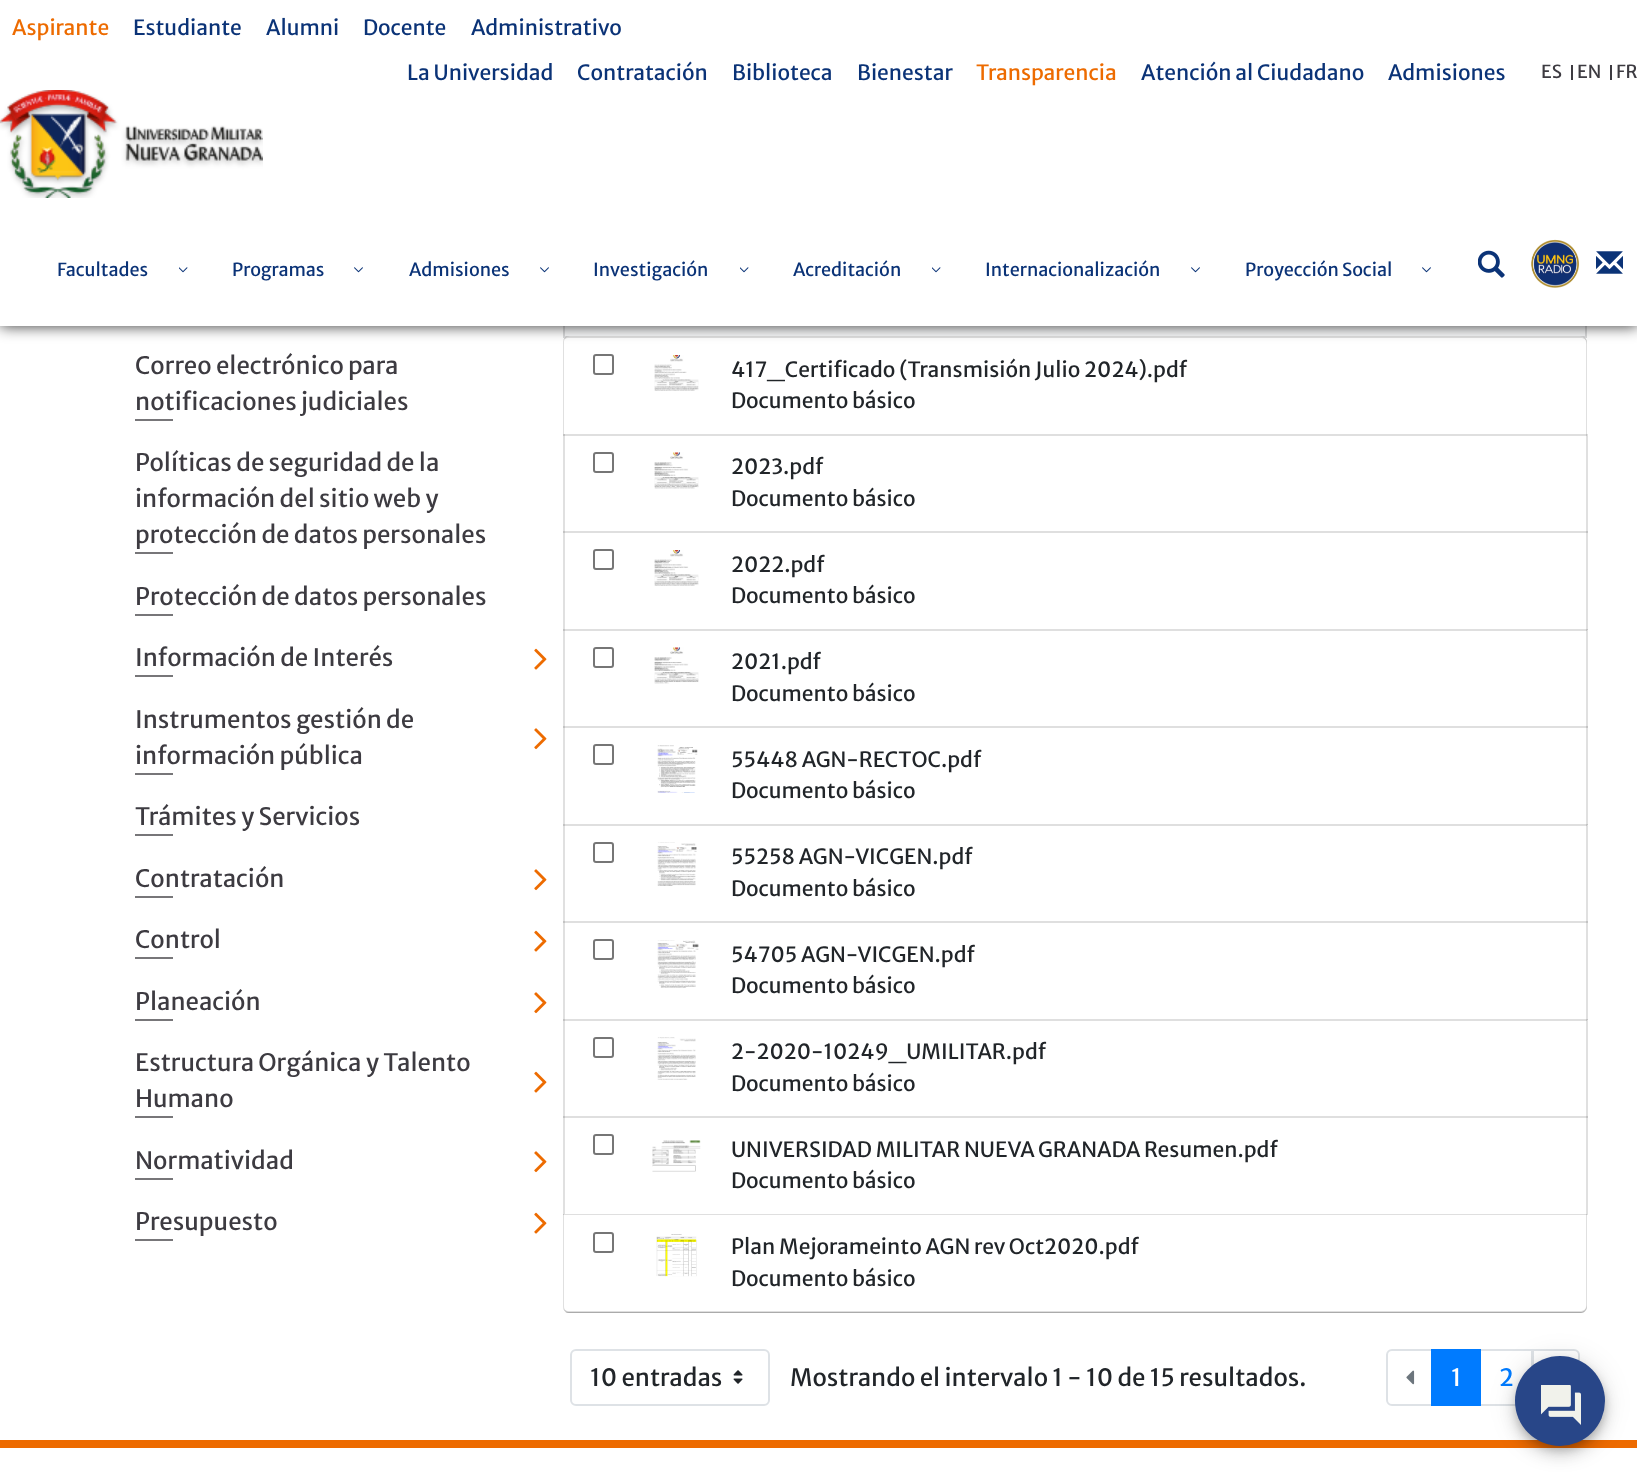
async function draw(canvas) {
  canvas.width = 1637;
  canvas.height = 1479;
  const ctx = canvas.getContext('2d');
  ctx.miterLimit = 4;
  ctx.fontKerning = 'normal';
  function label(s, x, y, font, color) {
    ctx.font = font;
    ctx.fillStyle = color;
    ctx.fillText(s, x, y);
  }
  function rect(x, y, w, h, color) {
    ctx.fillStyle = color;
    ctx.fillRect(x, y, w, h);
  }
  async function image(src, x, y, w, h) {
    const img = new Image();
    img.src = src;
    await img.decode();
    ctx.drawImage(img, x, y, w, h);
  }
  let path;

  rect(0, 0, 1637, 1479, '#fff');
  rect(565, 326, 1020, 10, '#f8f9fa');
  ctx.strokeStyle = '#d9dadb';
  ctx.lineWidth = 2;
  ctx.strokeRect(564, 271, 1022, 66);
  ctx.fillStyle = '#fff';
  ctx.beginPath();
  ctx.roundRect(563, 336, 1024, 99, [6, 6, 0, 0]);
  ctx.fill();
  ctx.fillStyle = '#0000001f';
  path = new Path2D('M568 338H1581C1584 338 1587 340 1587 344V342C1587 339 1584 336 1581 336H569C566 336 564 338 563 340C564 339 566 338 568 338Z');
  ctx.fill(path);
  path = new Path2D('M1586 435H1587V342C1587 339 1584 336 1581 336H1580C1583 336 1586 339 1586 342Z');
  ctx.fill(path);
  path = new Path2D('M569 336C566 336 563 339 563 342V435H564V342C564 339 567 336 570 336Z');
  ctx.fill(path);
  ctx.fillStyle = '#000000cc';
  ctx.filter = 'blur(7.5px)';
  ctx.beginPath();
  ctx.rect(0, 0, 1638, 326);
  ctx.fill();
  ctx.filter = 'none';
  rect(0, 0, 1637, 326, '#fff');
  label('Aspirante', 12, 35, '21px Merriweather Sans', '#ed6b00');
  label('Estudiante', 133, 35, '21px Merriweather Sans', '#0b3377');
  label('Alumni', 266, 35, '21px Merriweather Sans', '#0b3377');
  label('Docente', 363, 35, '21px Merriweather Sans', '#0b3377');
  label('Administrativo', 471, 35, '21px Merriweather Sans', '#0b3377');
  label('La Universidad', 407, 80, '21px Merriweather Sans', '#0b3377');
  label('Contratación', 577, 80, '21px Merriweather Sans', '#0b3377');
  label('Biblioteca', 732, 80, '21px Merriweather Sans', '#0b3377');
  label('Bienestar', 857, 80, '21px Merriweather Sans', '#0b3377');
  label('Transparencia', 976, 80, '21px Merriweather Sans', '#ed6b00');
  label('Atención al Ciudadano', 1141, 80, '21px Merriweather Sans', '#0b3377');
  label('Admisiones', 1388, 80, '21px Merriweather Sans', '#0b3377');
  label('ES', 1541, 78, '18px Merriweather Sans', '#3d3b41');
  rect(1571, 65, 2, 15, '#3d3b41');
  label('EN', 1577, 78, '18px Merriweather Sans', '#3d3b41');
  rect(1610, 65, 2, 15, '#3d3b41');
  label('FR', 1616, 78, '18px Merriweather Sans', '#3d3b41');
  await image('assets/img1.png', 0, 90, 263, 108);
  label('Facultades', 57, 276, '18px Merriweather Sans', '#0b3377');
  await image('assets/img2.png', 179, 267, 9, 6);
  label('Programas', 232, 276, '18px Merriweather Sans', '#0b3377');
  await image('assets/img3.png', 354, 267, 9, 6);
  label('Admisiones', 409, 276, '18px Merriweather Sans', '#0b3377');
  await image('assets/img3.png', 540, 267, 9, 6);
  label('Investigación', 593, 276, '18px Merriweather Sans', '#0b3377');
  await image('assets/img2.png', 740, 267, 9, 6);
  label('Acreditación', 793, 276, '18px Merriweather Sans', '#0b3377');
  await image('assets/img2.png', 932, 267, 9, 6);
  label('Internacionalización', 985, 276, '18px Merriweather Sans', '#0b3377');
  await image('assets/img3.png', 1191, 267, 9, 6);
  label('Proyección Social', 1245, 276, '18px Merriweather Sans', '#0b3377');
  await image('assets/img3.png', 1422, 267, 9, 6);
  await image('assets/img4.png', 1478, 250, 27, 28);
  await image('assets/img5.png', 1531, 239, 48, 49);
  await image('assets/img6.png', 1596, 251, 27, 23);
  label('Correo electrónico para', 135, 374, '24px Merriweather Sans', '#3d3b41');
  label('notificaciones judiciales', 135, 410, '24px Merriweather Sans', '#3d3b41');
  rect(135, 419, 38, 2, '#777679');
  label('Políticas de seguridad de la', 135, 471, '24px Merriweather Sans', '#3d3b41');
  label('información del sitio web y', 135, 507, '24px Merriweather Sans', '#3d3b41');
  label('protección de datos personales', 135, 543, '24px Merriweather Sans', '#3d3b41');
  rect(135, 552, 38, 2, '#777679');
  label('Protección de datos personales', 135, 605, '24px Merriweather Sans', '#3d3b41');
  rect(135, 614, 38, 2, '#777679');
  label('Información de Interés', 135, 666, '24px Merriweather Sans', '#3d3b41');
  await image('assets/img7.png', 534, 648, 13, 22);
  rect(135, 675, 38, 2, '#777679');
  label('Instrumentos gestión de', 135, 728, '24px Merriweather Sans', '#3d3b41');
  await image('assets/img8.png', 534, 728, 13, 22);
  label('información pública', 135, 764, '24px Merriweather Sans', '#3d3b41');
  rect(135, 773, 38, 2, '#777679');
  label('Trámites y Servicios', 135, 825, '24px Merriweather Sans', '#3d3b41');
  rect(135, 834, 38, 2, '#777679');
  label('Contratación', 135, 887, '24px Merriweather Sans', '#3d3b41');
  await image('assets/img8.png', 534, 869, 13, 22);
  rect(135, 896, 38, 2, '#777679');
  label('Control', 135, 948, '24px Merriweather Sans', '#3d3b41');
  await image('assets/img7.png', 534, 930, 13, 22);
  rect(135, 957, 38, 2, '#777679');
  label('Planeación', 135, 1010, '24px Merriweather Sans', '#3d3b41');
  await image('assets/img8.png', 534, 992, 13, 22);
  rect(135, 1019, 38, 2, '#777679');
  label('Estructura Orgánica y Talento', 135, 1071, '24px Merriweather Sans', '#3d3b41');
  await image('assets/img7.png', 534, 1071, 13, 22);
  label('Humano', 135, 1107, '24px Merriweather Sans', '#3d3b41');
  rect(135, 1116, 38, 2, '#777679');
  label('Normatividad', 135, 1169, '24px Merriweather Sans', '#3d3b41');
  await image('assets/img8.png', 534, 1151, 13, 22);
  rect(135, 1178, 38, 2, '#777679');
  label('Presupuesto', 135, 1230, '24px Merriweather Sans', '#3d3b41');
  await image('assets/img7.png', 534, 1212, 13, 22);
  rect(135, 1239, 38, 2, '#777679');
  ctx.beginPath();
  ctx.roundRect(594, 355, 19, 19, 2);
  ctx.strokeStyle = '#767676';
  ctx.stroke();
  await image('assets/img9.png', 654, 355, 45, 36);
  label('417_Certificado (Transmisión Julio 2024).pdf', 731, 377, '21px Merriweather Sans', '#212529');
  label('Documento básico', 731, 408, '21px Merriweather Sans', '#212529');
  rect(563, 434, 1024, 2, '#dfdfdf');
  rect(1586, 434, 2, 99, '#0000001f');
  rect(563, 434, 2, 99, '#0000001f');
  ctx.beginPath();
  ctx.roundRect(594, 453, 19, 19, 2);
  ctx.stroke();
  await image('assets/img10.png', 654, 452, 45, 37);
  label('2023.pdf', 731, 474, '21px Merriweather Sans', '#212529');
  label('Documento básico', 731, 506, '21px Merriweather Sans', '#212529');
  rect(563, 531, 1024, 2, '#dfdfdf');
  rect(1586, 531, 2, 99, '#0000001f');
  rect(563, 531, 2, 99, '#0000001f');
  ctx.beginPath();
  ctx.roundRect(594, 550, 19, 19, 2);
  ctx.stroke();
  await image('assets/img11.png', 654, 550, 45, 36);
  label('2022.pdf', 731, 572, '21px Merriweather Sans', '#212529');
  label('Documento básico', 731, 603, '21px Merriweather Sans', '#212529');
  rect(563, 629, 1024, 2, '#dfdfdf');
  rect(1586, 629, 2, 99, '#0000001f');
  rect(563, 629, 2, 99, '#0000001f');
  ctx.beginPath();
  ctx.roundRect(594, 648, 19, 19, 2);
  ctx.stroke();
  await image('assets/img12.png', 654, 647, 45, 37);
  label('2021.pdf', 731, 669, '21px Merriweather Sans', '#212529');
  label('Documento básico', 731, 701, '21px Merriweather Sans', '#212529');
  rect(563, 726, 1024, 2, '#dfdfdf');
  rect(1586, 726, 2, 99, '#0000001f');
  rect(563, 726, 2, 99, '#0000001f');
  ctx.beginPath();
  ctx.roundRect(594, 745, 19, 19, 2);
  ctx.stroke();
  await image('assets/img13.png', 657, 745, 41, 48);
  label('55448 AGN-RECTOC.pdf', 731, 767, '21px Merriweather Sans', '#212529');
  label('Documento básico', 731, 798, '21px Merriweather Sans', '#212529');
  rect(563, 824, 1024, 2, '#dfdfdf');
  rect(1586, 824, 2, 99, '#0000001f');
  rect(563, 824, 2, 99, '#0000001f');
  ctx.beginPath();
  ctx.roundRect(594, 843, 19, 19, 2);
  ctx.stroke();
  await image('assets/img14.png', 657, 842, 40, 44);
  label('55258 AGN-VICGEN.pdf', 731, 864, '21px Merriweather Sans', '#212529');
  label('Documento básico', 731, 896, '21px Merriweather Sans', '#212529');
  rect(563, 921, 1024, 2, '#dfdfdf');
  rect(1586, 921, 2, 99, '#0000001f');
  rect(563, 921, 2, 99, '#0000001f');
  ctx.beginPath();
  ctx.roundRect(594, 940, 19, 19, 2);
  ctx.stroke();
  await image('assets/img15.png', 657, 940, 42, 48);
  label('54705 AGN-VICGEN.pdf', 731, 962, '21px Merriweather Sans', '#212529');
  label('Documento básico', 731, 993, '21px Merriweather Sans', '#212529');
  rect(563, 1019, 1024, 2, '#dfdfdf');
  rect(1586, 1019, 2, 99, '#0000001f');
  rect(563, 1019, 2, 99, '#0000001f');
  ctx.beginPath();
  ctx.roundRect(594, 1038, 19, 19, 2);
  ctx.stroke();
  await image('assets/img16.png', 657, 1037, 39, 43);
  label('2-2020-10249_UMILITAR.pdf', 731, 1059, '21px Merriweather Sans', '#212529');
  label('Documento básico', 731, 1091, '21px Merriweather Sans', '#212529');
  rect(563, 1116, 1024, 2, '#dfdfdf');
  rect(1586, 1116, 2, 99, '#0000001f');
  rect(563, 1116, 2, 99, '#0000001f');
  ctx.beginPath();
  ctx.roundRect(594, 1135, 19, 19, 2);
  ctx.stroke();
  await image('assets/img17.png', 652, 1140, 49, 32);
  label('UNIVERSIDAD MILITAR NUEVA GRANADA Resumen.pdf', 731, 1157, '21px Merriweather Sans', '#212529');
  label('Documento básico', 731, 1188, '21px Merriweather Sans', '#212529');
  ctx.fillStyle = '#fff';
  ctx.beginPath();
  ctx.roundRect(563, 1214, 1024, 99, [0, 0, 6, 6]);
  ctx.fill();
  ctx.fillStyle = '#dfdfdf';
  path = new Path2D('M563 1308C564 1311 566 1313 569 1313H1581C1584 1313 1587 1310 1587 1307V1305C1587 1308 1584 1311 1581 1311H568C566 1311 564 1310 563 1308Z');
  ctx.fill(path);
  rect(563, 1214, 1024, 1, '#dfdfdf');
  ctx.fillStyle = '#0000001f';
  path = new Path2D('M565 1312C566 1313 568 1313 569 1313H1581C1584 1313 1587 1310 1587 1307V1214H1586V1306C1586 1310 1583 1312 1580 1312Z');
  ctx.fill(path);
  path = new Path2D('M563 1214V1307C563 1310 566 1313 569 1313H1581C1583 1313 1584 1312 1585 1311L1582 1312H570C567 1312 564 1310 564 1306V1214Z');
  ctx.fill(path);
  ctx.beginPath();
  ctx.roundRect(594, 1233, 19, 19, 2);
  ctx.stroke();
  await image('assets/img18.png', 656, 1234, 41, 43);
  label('Plan Mejorameinto AGN rev Oct2020.pdf', 731, 1254, '21px Merriweather Sans', '#212529');
  label('Documento básico', 731, 1286, '21px Merriweather Sans', '#212529');
  ctx.beginPath();
  ctx.roundRect(571, 1350, 198, 55, 5);
  ctx.strokeStyle = '#dee2e6';
  ctx.stroke();
  label('10 entradas', 590, 1386, '24px Merriweather Sans', '#212529');
  await image('assets/img19.png', 733, 1370, 10, 14);
  label('Mostrando el intervalo 1 - 10 de 15 resultados.', 790, 1386, '24px Merriweather Sans', '#212529');
  ctx.beginPath();
  ctx.roundRect(1387, 1350, 45, 55, [5, 0, 0, 5]);
  ctx.stroke();
  await image('assets/img20.png', 1406, 1370, 9, 15);
  ctx.strokeRect(1480, 1350, 52, 55);
  rect(1431, 1349, 50, 57, '#007bff');
  label('1', 1451, 1386, '24px Merriweather Sans', '#fff');
  label('2', 1499, 1386, '24px Merriweather Sans', '#007bff');
  ctx.fillStyle = '#fff';
  ctx.beginPath();
  ctx.roundRect(1533, 1350, 46, 55, [0, 5, 5, 0]);
  ctx.fill();
  ctx.stroke();
  rect(0, 1440, 1637, 8, '#ed6b00');
  ctx.fillStyle = '#0000001f';
  ctx.filter = 'blur(13.5px)';
  ctx.beginPath();
  ctx.roundRect(1515, 1358, 90, 90, 45);
  ctx.fill();
  ctx.filter = 'none';
  ctx.fillStyle = '#00000024';
  ctx.filter = 'blur(7.5px)';
  ctx.beginPath();
  ctx.roundRect(1515, 1365, 90, 90, 45);
  ctx.fill();
  ctx.filter = 'none';
  ctx.fillStyle = '#00000033';
  ctx.filter = 'blur(4px)';
  ctx.beginPath();
  ctx.roundRect(1517, 1362, 87, 87, 43.5);
  ctx.fill();
  ctx.filter = 'none';
  ctx.fillStyle = '#284688';
  ctx.beginPath();
  ctx.arc(1560, 1401, 45, 0, 2 * Math.PI);
  ctx.fill();
  await image('assets/img21.png', 1541, 1385, 40, 40);
}

draw(document.querySelector('canvas'));
